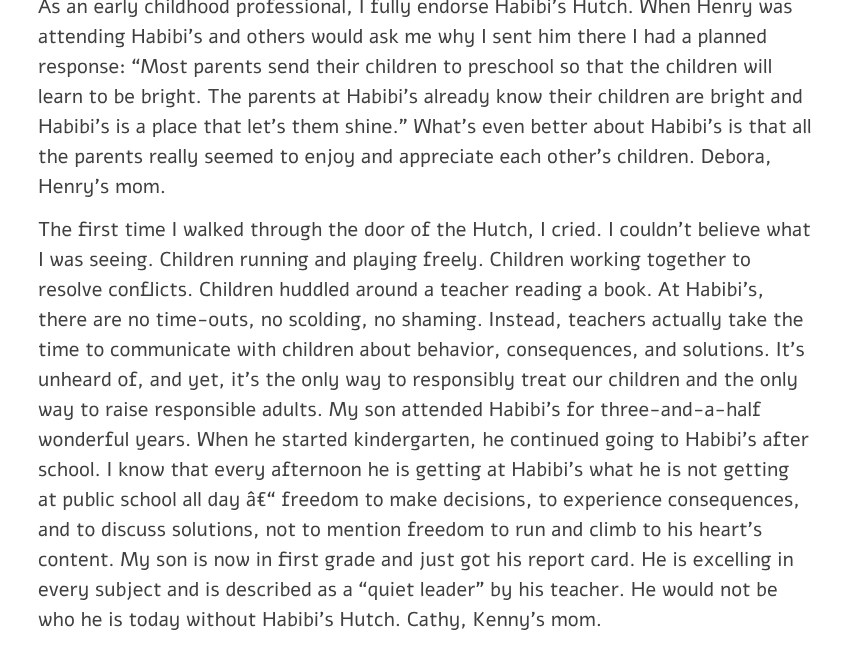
async function draw(canvas) {
  canvas.width = 850;
  canvas.height = 652;
  const ctx = canvas.getContext('2d');
  ctx.miterLimit = 4;
  ctx.fontKerning = 'normal';
  function label(s, x, y, font, color) {
    ctx.font = font;
    ctx.fillStyle = color;
    ctx.fillText(s, x, y);
  }
  function rect(x, y, w, h, color) {
    ctx.fillStyle = color;
    ctx.fillRect(x, y, w, h);
  }

  rect(0, 0, 850, 652, '#fff');
  label('As an early childhood professional, I fully endorse Habibi’s Hutch. When Henry was', 38, 13, '20px Alef', '#404040');
  label('attending Habibi’s and others would ask me why I sent him there I had a planned', 38, 43, '20px Alef', '#404040');
  label('response: “Most parents send their children to preschool so that the children will', 38, 73, '20px Alef', '#404040');
  label('learn to be bright. The parents at Habibi’s already know their children are bright and', 38, 103, '20px Alef', '#404040');
  label('Habibi’s is a place that let’s them shine.” What’s even better about Habibi’s is that all', 38, 133, '20px Alef', '#404040');
  label('the parents really seemed to enjoy and appreciate each other’s children. Debora,', 38, 163, '20px Alef', '#404040');
  label('Henry’s mom.', 38, 193, '20px Alef', '#404040');
  label('The first time I walked through the door of the Hutch, I cried. I couldn’t believe what', 38, 236, '20px Alef', '#404040');
  label('I was seeing. Children running and playing freely. Children working together to', 38, 266, '20px Alef', '#404040');
  label('resolve conflicts. Children huddled around a teacher reading a book. At Habibi’s,', 38, 296, '20px Alef', '#404040');
  label('there are no time-outs, no scolding, no shaming. Instead, teachers actually take the', 38, 326, '20px Alef', '#404040');
  label('time to communicate with children about behavior, consequences, and solutions. It’s', 38, 356, '20px Alef', '#404040');
  label('unheard of, and yet, it’s the only way to responsibly treat our children and the only', 38, 386, '20px Alef', '#404040');
  label('way to raise responsible adults. My son attended Habibi’s for three-and-a-half', 38, 416, '20px Alef', '#404040');
  label('wonderful years. When he started kindergarten, he continued going to Habibi’s after', 38, 446, '20px Alef', '#404040');
  label('school. I know that every afternoon he is getting at Habibi’s what he is not getting', 38, 476, '20px Alef', '#404040');
  label('at public school all day â€“ freedom to make decisions, to experience consequences,', 38, 506, '20px Alef', '#404040');
  label('and to discuss solutions, not to mention freedom to run and climb to his heart’s', 38, 536, '20px Alef', '#404040');
  label('content. My son is now in first grade and just got his report card. He is excelling in', 38, 566, '20px Alef', '#404040');
  label('every subject and is described as a “quiet leader” by his teacher. He would not be', 38, 596, '20px Alef', '#404040');
  label('who he is today without Habibi’s Hutch. Cathy, Kenny’s mom.', 38, 626, '20px Alef', '#404040');
}

draw(document.querySelector('canvas'));
